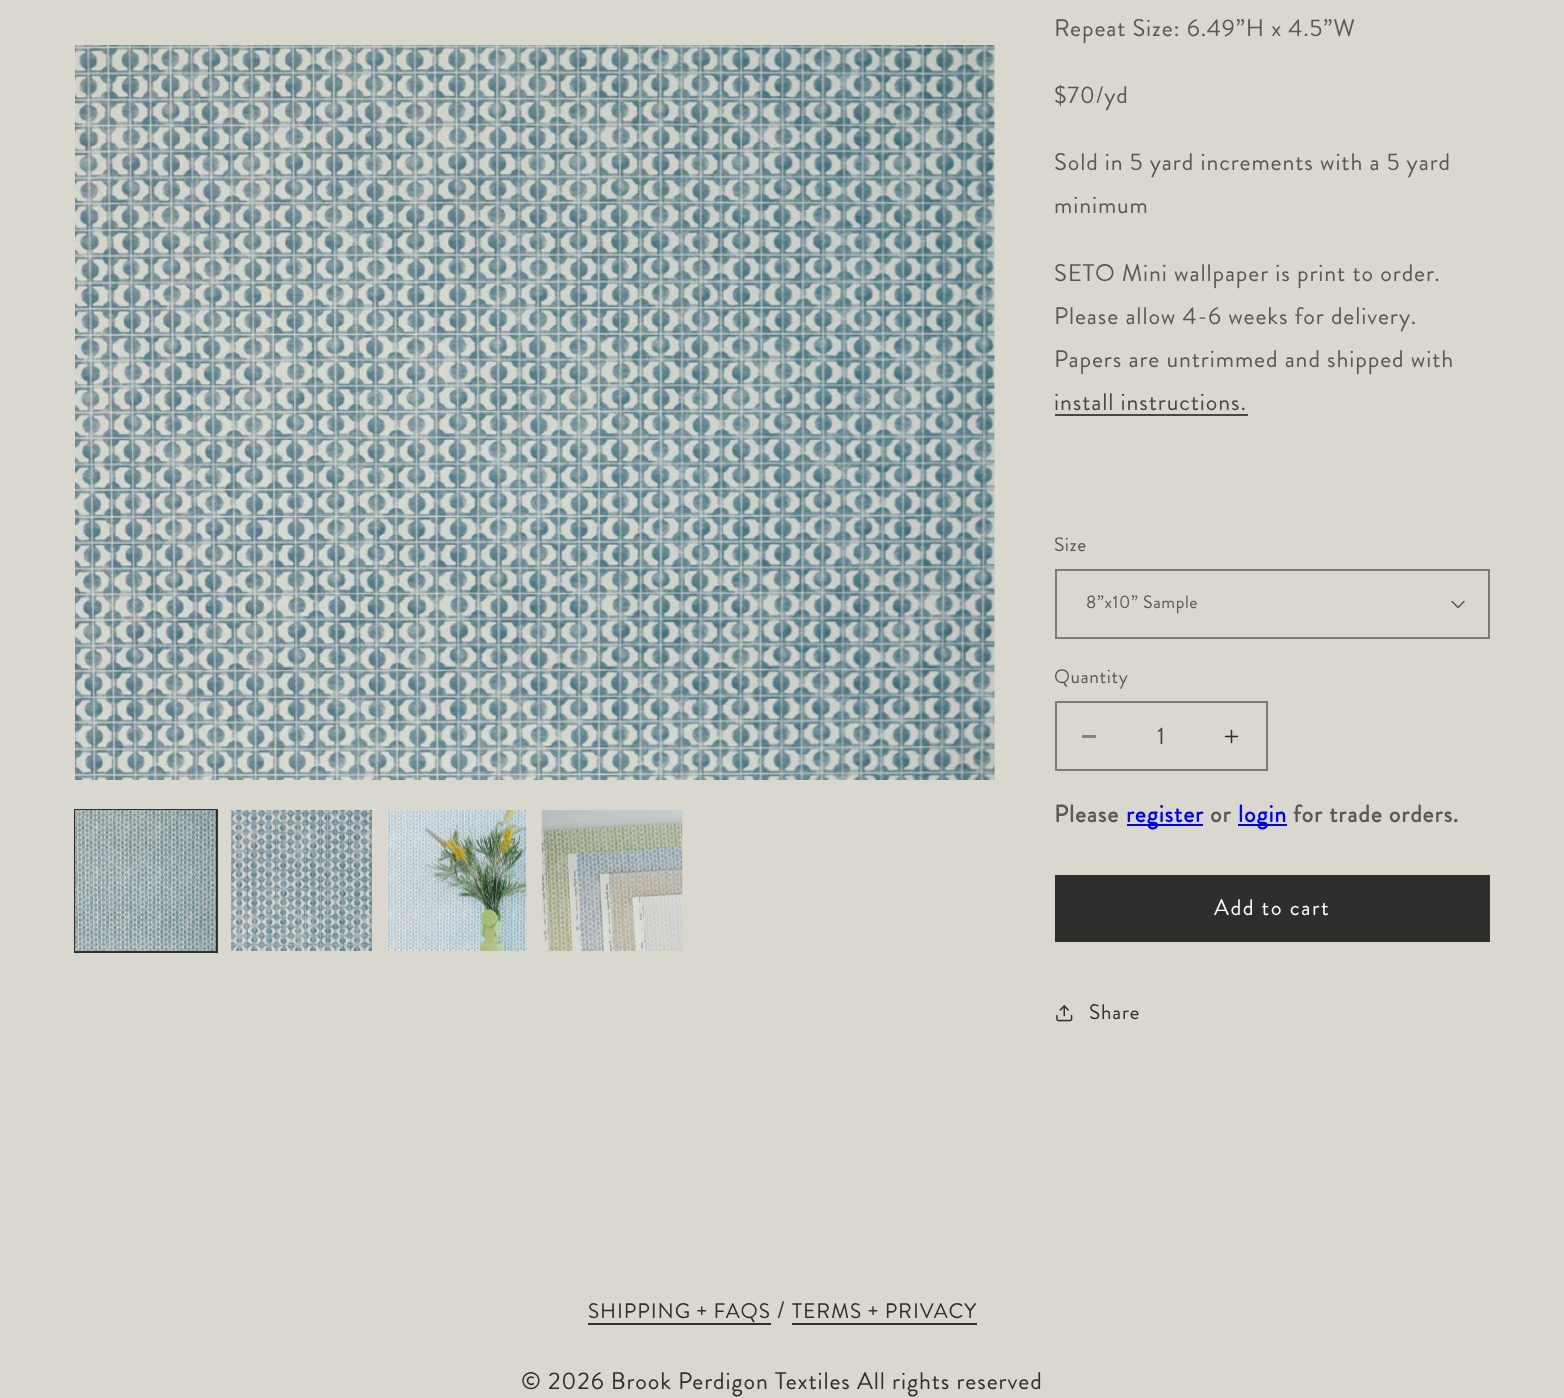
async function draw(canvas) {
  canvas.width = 1564;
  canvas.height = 1398;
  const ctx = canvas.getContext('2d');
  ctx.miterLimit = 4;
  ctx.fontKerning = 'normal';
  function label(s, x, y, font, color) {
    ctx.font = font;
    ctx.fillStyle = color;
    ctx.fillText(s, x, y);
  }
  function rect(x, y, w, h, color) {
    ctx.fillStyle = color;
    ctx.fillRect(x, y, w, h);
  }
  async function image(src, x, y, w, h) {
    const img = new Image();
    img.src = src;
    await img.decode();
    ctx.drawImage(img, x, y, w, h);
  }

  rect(0, 0, 1564, 1398, '#dad7cf');
  await image('assets/img1.png', 75, 45, 920, 735);
  ctx.strokeStyle = '#2e2e2d';
  ctx.lineWidth = 2;
  ctx.strokeRect(75, 810, 142, 142);
  await image('assets/img2.png', 75, 810, 141, 141);
  await image('assets/img3.png', 231, 810, 141, 141);
  await image('assets/img4.png', 387, 810, 140, 141);
  await image('assets/img5.png', 541, 810, 142, 141);
  ctx.letterSpacing = '0.9px';
  label('Repeat Size: 6.49”H x 4.5”W', 1054, 36, '24px Brandon Grotesque', '#595856');
  label('$70/yd', 1054, 103, '24px Brandon Grotesque', '#595856');
  label('Sold in 5 yard increments with a 5 yard', 1054, 170, '24px Brandon Grotesque', '#595856');
  label('minimum', 1054, 213, '24px Brandon Grotesque', '#595856');
  label('SETO Mini wallpaper is print to order.', 1054, 281, '24px Brandon Grotesque', '#595856');
  label('Please allow 4-6 weeks for delivery.', 1054, 324, '24px Brandon Grotesque', '#595856');
  label('Papers are untrimmed and shipped with', 1054, 367, '24px Brandon Grotesque', '#595856');
  label('install instructions.', 1054, 410, '24px Brandon Grotesque', '#484745');
  rect(1055, 414, 193, 2, '#484745');
  ctx.letterSpacing = '0.6px';
  label('Size', 1054, 551, '19.5px Brandon Grotesque', '#595856');
  await image('assets/img6.png', 1451, 600, 14, 9);
  ctx.strokeStyle = '#7b7a76';
  ctx.strokeRect(1056, 570, 433, 68);
  label('8”x10” Sample', 1086, 608, '18px Brandon Grotesque', '#595856');
  label('Quantity', 1054, 683, '19.5px Brandon Grotesque', '#595856');
  rect(1082, 735, 14, 3, '#84837e');
  await image('assets/img7.png', 1224, 729, 15, 15);
  ctx.strokeRect(1056, 702, 211, 68);
  ctx.letterSpacing = '0px';
  label('1', 1157, 744, '24px Brandon Grotesque', '#484745');
  ctx.letterSpacing = '0.9px';
  label('Please', 1054, 822, 'bold 24px Brandon Grotesque', '#595856');
  rect(1127, 824, 76, 2, '#00e');
  label('register', 1126, 822, 'bold 24px Brandon Grotesque', '#00e');
  label('or', 1210, 822, 'bold 24px Brandon Grotesque', '#595856');
  rect(1238, 824, 49, 2, '#00e');
  label('login', 1238, 822, 'bold 24px Brandon Grotesque', '#00e');
  label('for trade orders.', 1293, 822, 'bold 24px Brandon Grotesque', '#595856');
  rect(1055, 875, 435, 67, '#2e2e2d');
  ctx.letterSpacing = '1.5px';
  label('Add to cart', 1214, 915, '22.5px Brandon Grotesque', '#fff');
  await image('assets/img8.png', 1056, 1005, 17, 17);
  ctx.letterSpacing = '0.9px';
  label('Share', 1089, 1019, '21px Brandon Grotesque', '#2e2e2d');
  label('SHIPPING + FAQS', 588, 1318, '21px Brandon Grotesque', '#2e2e2d');
  rect(588, 1323, 183, 2, '#2e2e2d');
  label('/', 777, 1318, '24px Brandon Grotesque', '#2e2e2d');
  label('TERMS + PRIVACY', 792, 1318, '21px Brandon Grotesque', '#2e2e2d');
  rect(792, 1323, 185, 2, '#2e2e2d');
  label('© 2026 Brook Perdigon Textiles All rights reserved', 521, 1389, '24px Brandon Grotesque', '#2e2e2d');
}

draw(document.querySelector('canvas'));
